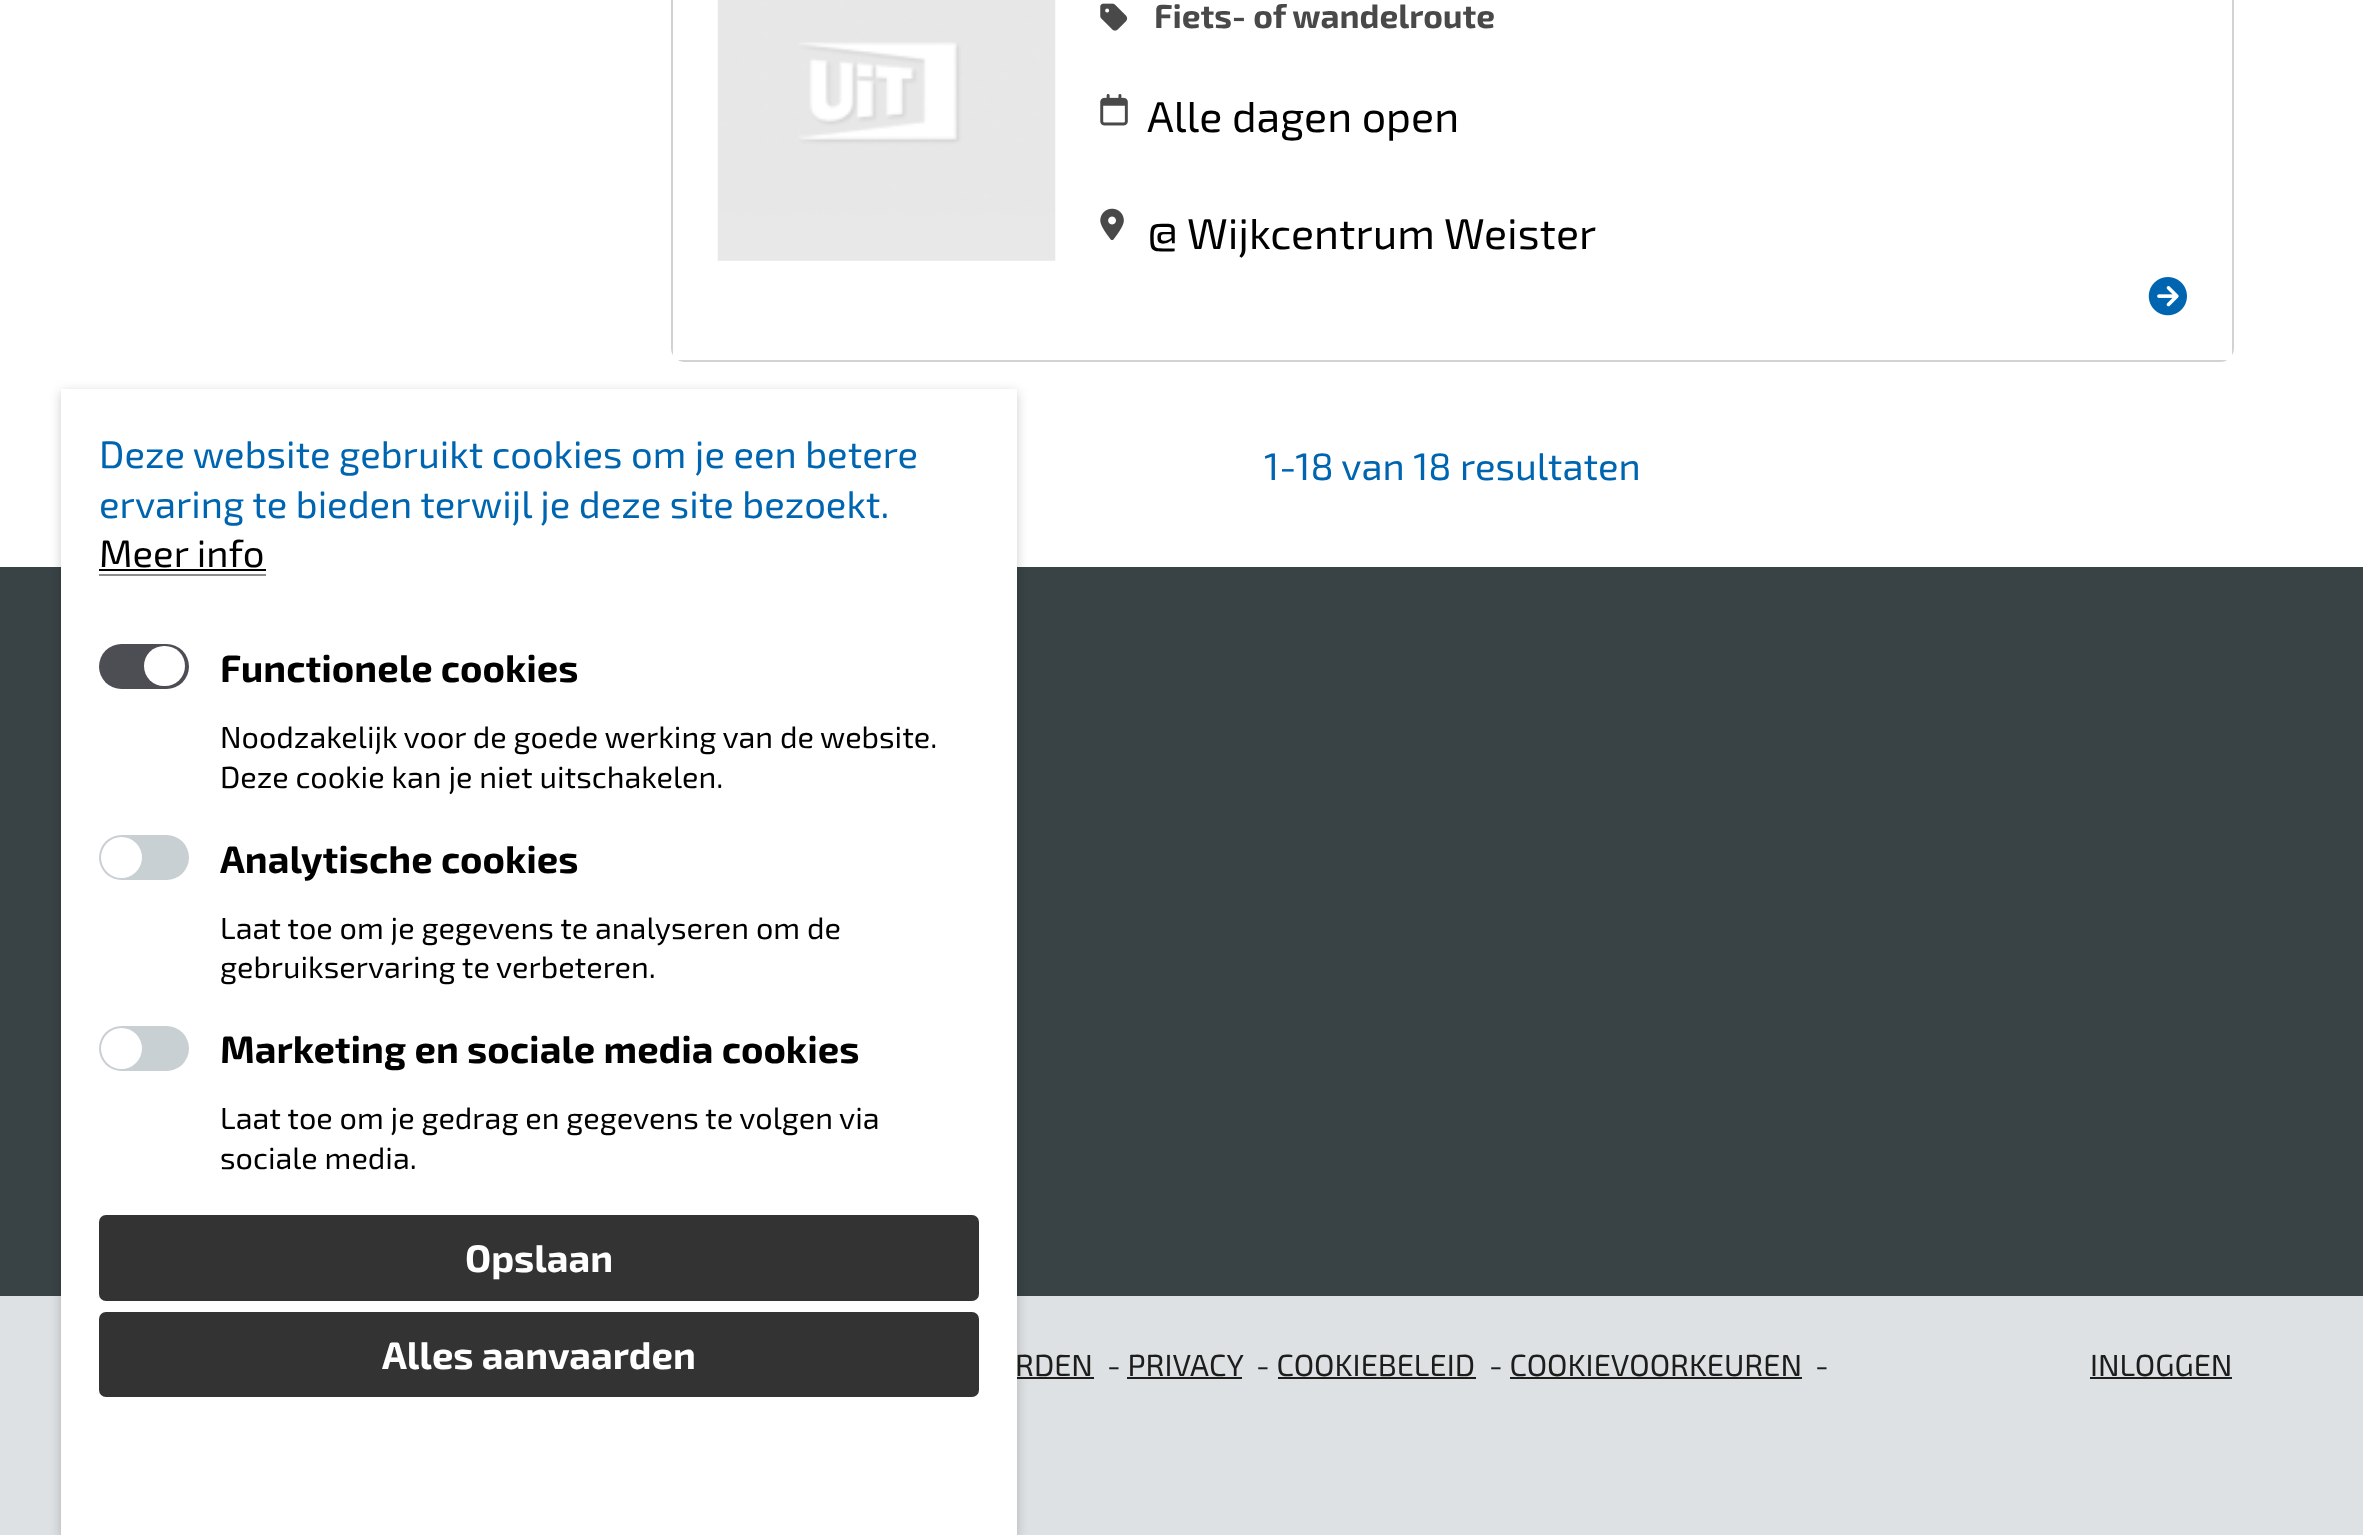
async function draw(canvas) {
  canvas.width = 2363;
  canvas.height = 1535;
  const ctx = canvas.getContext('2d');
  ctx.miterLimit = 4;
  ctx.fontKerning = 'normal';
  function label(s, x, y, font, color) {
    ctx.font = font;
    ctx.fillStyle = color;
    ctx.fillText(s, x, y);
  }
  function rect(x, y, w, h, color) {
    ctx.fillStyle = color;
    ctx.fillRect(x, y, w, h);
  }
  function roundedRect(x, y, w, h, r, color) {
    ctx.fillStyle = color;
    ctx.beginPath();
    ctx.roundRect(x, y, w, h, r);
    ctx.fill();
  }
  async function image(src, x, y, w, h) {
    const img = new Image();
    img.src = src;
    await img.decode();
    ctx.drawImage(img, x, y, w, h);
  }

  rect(0, 0, 2363, 1535, '#fff');
  rect(0, 567, 2363, 729, '#394346');
  rect(0, 1296, 2363, 239, '#dde1e3');
  rect(1017, 1377, 77, 2, '#1d1d1b');
  ctx.fillStyle = '#00000033';
  ctx.filter = 'blur(5.5px)';
  ctx.beginPath();
  ctx.rect(61, 392, 956, 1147);
  ctx.fill();
  ctx.filter = 'none';
  rect(61, 389, 956, 1146, '#fff');
  label('Deze website gebruikt cookies om je een betere', 99, 468, '38.25px "Exo 2"', '#0065b0');
  label('ervaring te bieden terwijl je deze site bezoekt.', 99, 518, '38.25px "Exo 2"', '#0065b0');
  label('Meer info', 99, 567, '38.25px "Exo 2"', '#000');
  rect(99, 574, 167, 2, '#8c8d8d');
  rect(99, 569, 167, 2, '#000');
  roundedRect(99, 644, 90, 45, 22.5, '#4c4e54');
  roundedRect(144, 646, 41, 40, 20, '#fff');
  label('Functionele cookies', 220, 682, 'bold 38.25px "Exo 2"', '#000');
  label('Noodzakelijk voor de goede werking van de website.', 220, 748, '30.6px "Exo 2"', '#000');
  label('Deze cookie kan je niet uitschakelen.', 220, 788, '30.6px "Exo 2"', '#000');
  roundedRect(99, 835, 90, 45, 22.5, '#c8d0d3');
  ctx.fillStyle = '#fff';
  ctx.beginPath();
  ctx.arc(121.5, 857.5, 20.5, 0, 2 * Math.PI);
  ctx.fill();
  label('Analytische cookies', 220, 873, 'bold 38.25px "Exo 2"', '#000');
  label('Laat toe om je gegevens te analyseren om de', 220, 939, '30.6px "Exo 2"', '#000');
  label('gebruikservaring te verbeteren.', 220, 978, '30.6px "Exo 2"', '#000');
  roundedRect(99, 1026, 90, 45, 22.5, '#c8d0d3');
  ctx.fillStyle = '#fff';
  ctx.beginPath();
  ctx.arc(121.5, 1048.5, 20.5, 0, 2 * Math.PI);
  ctx.fill();
  label('Marketing en sociale media cookies', 220, 1063, 'bold 38.25px "Exo 2"', '#000');
  label('Laat toe om je gedrag en gegevens te volgen via', 220, 1129, '30.6px "Exo 2"', '#000');
  label('sociale media.', 220, 1169, '30.6px "Exo 2"', '#000');
  roundedRect(99, 1215, 880, 86, 7, '#333');
  label('Opslaan', 465, 1272, 'bold 38.25px "Exo 2"', '#fff');
  roundedRect(99, 1312, 880, 85, 7, '#333');
  label('Alles aanvaarden', 382, 1369, 'bold 38.25px "Exo 2"', '#fff');
  ctx.beginPath();
  ctx.roundRect(672, -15, 1561, 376, 13);
  ctx.strokeStyle = '#d2d2d2';
  ctx.lineWidth = 2;
  ctx.stroke();
  rect(673, 349, 1559, 11, '#fff');
  await image('assets/img1.png', 717, 0, 339, 261);
  await image('assets/img2.png', 1100, 3, 28, 28);
  label('Fiets- of wandelroute', 1154, 28, 'bold 33.5px "Exo 2"', '#494949');
  await image('assets/img3.png', 1100, 94, 28, 32);
  label('Alle dagen open', 1147, 132, '43px "Exo 2"', '#000');
  await image('assets/img4.png', 1100, 208, 24, 33);
  label('@ Wijkcentrum Weister', 1147, 249, '43px "Exo 2"', '#000');
  await image('assets/img5.png', 2148, 277, 39, 39);
  label('1-18 van 18 resultaten', 1264, 480, '38.25px "Exo 2"', '#0065b0');
  label('RDEN', 1015, 1376, '30.6px "Exo 2"', '#1d1d1b');
  label('- PRIVACY', 1107, 1376, '30.6px "Exo 2"', '#1d1d1b');
  label('- COOKIEBELEID', 1256, 1376, '30.6px "Exo 2"', '#1d1d1b');
  rect(1127, 1377, 115, 2, '#1d1d1b');
  label('- COOKIEVOORKEUREN', 1489, 1376, '30.6px "Exo 2"', '#1d1d1b');
  rect(1278, 1377, 198, 2, '#1d1d1b');
  label('-', 1815, 1376, '30.6px "Exo 2"', '#1d1d1b');
  rect(1510, 1377, 292, 2, '#1d1d1b');
  label('INLOGGEN', 2090, 1376, '30.6px "Exo 2"', '#1d1d1b');
  rect(2090, 1377, 142, 2, '#1d1d1b');
}

draw(document.querySelector('canvas'));
